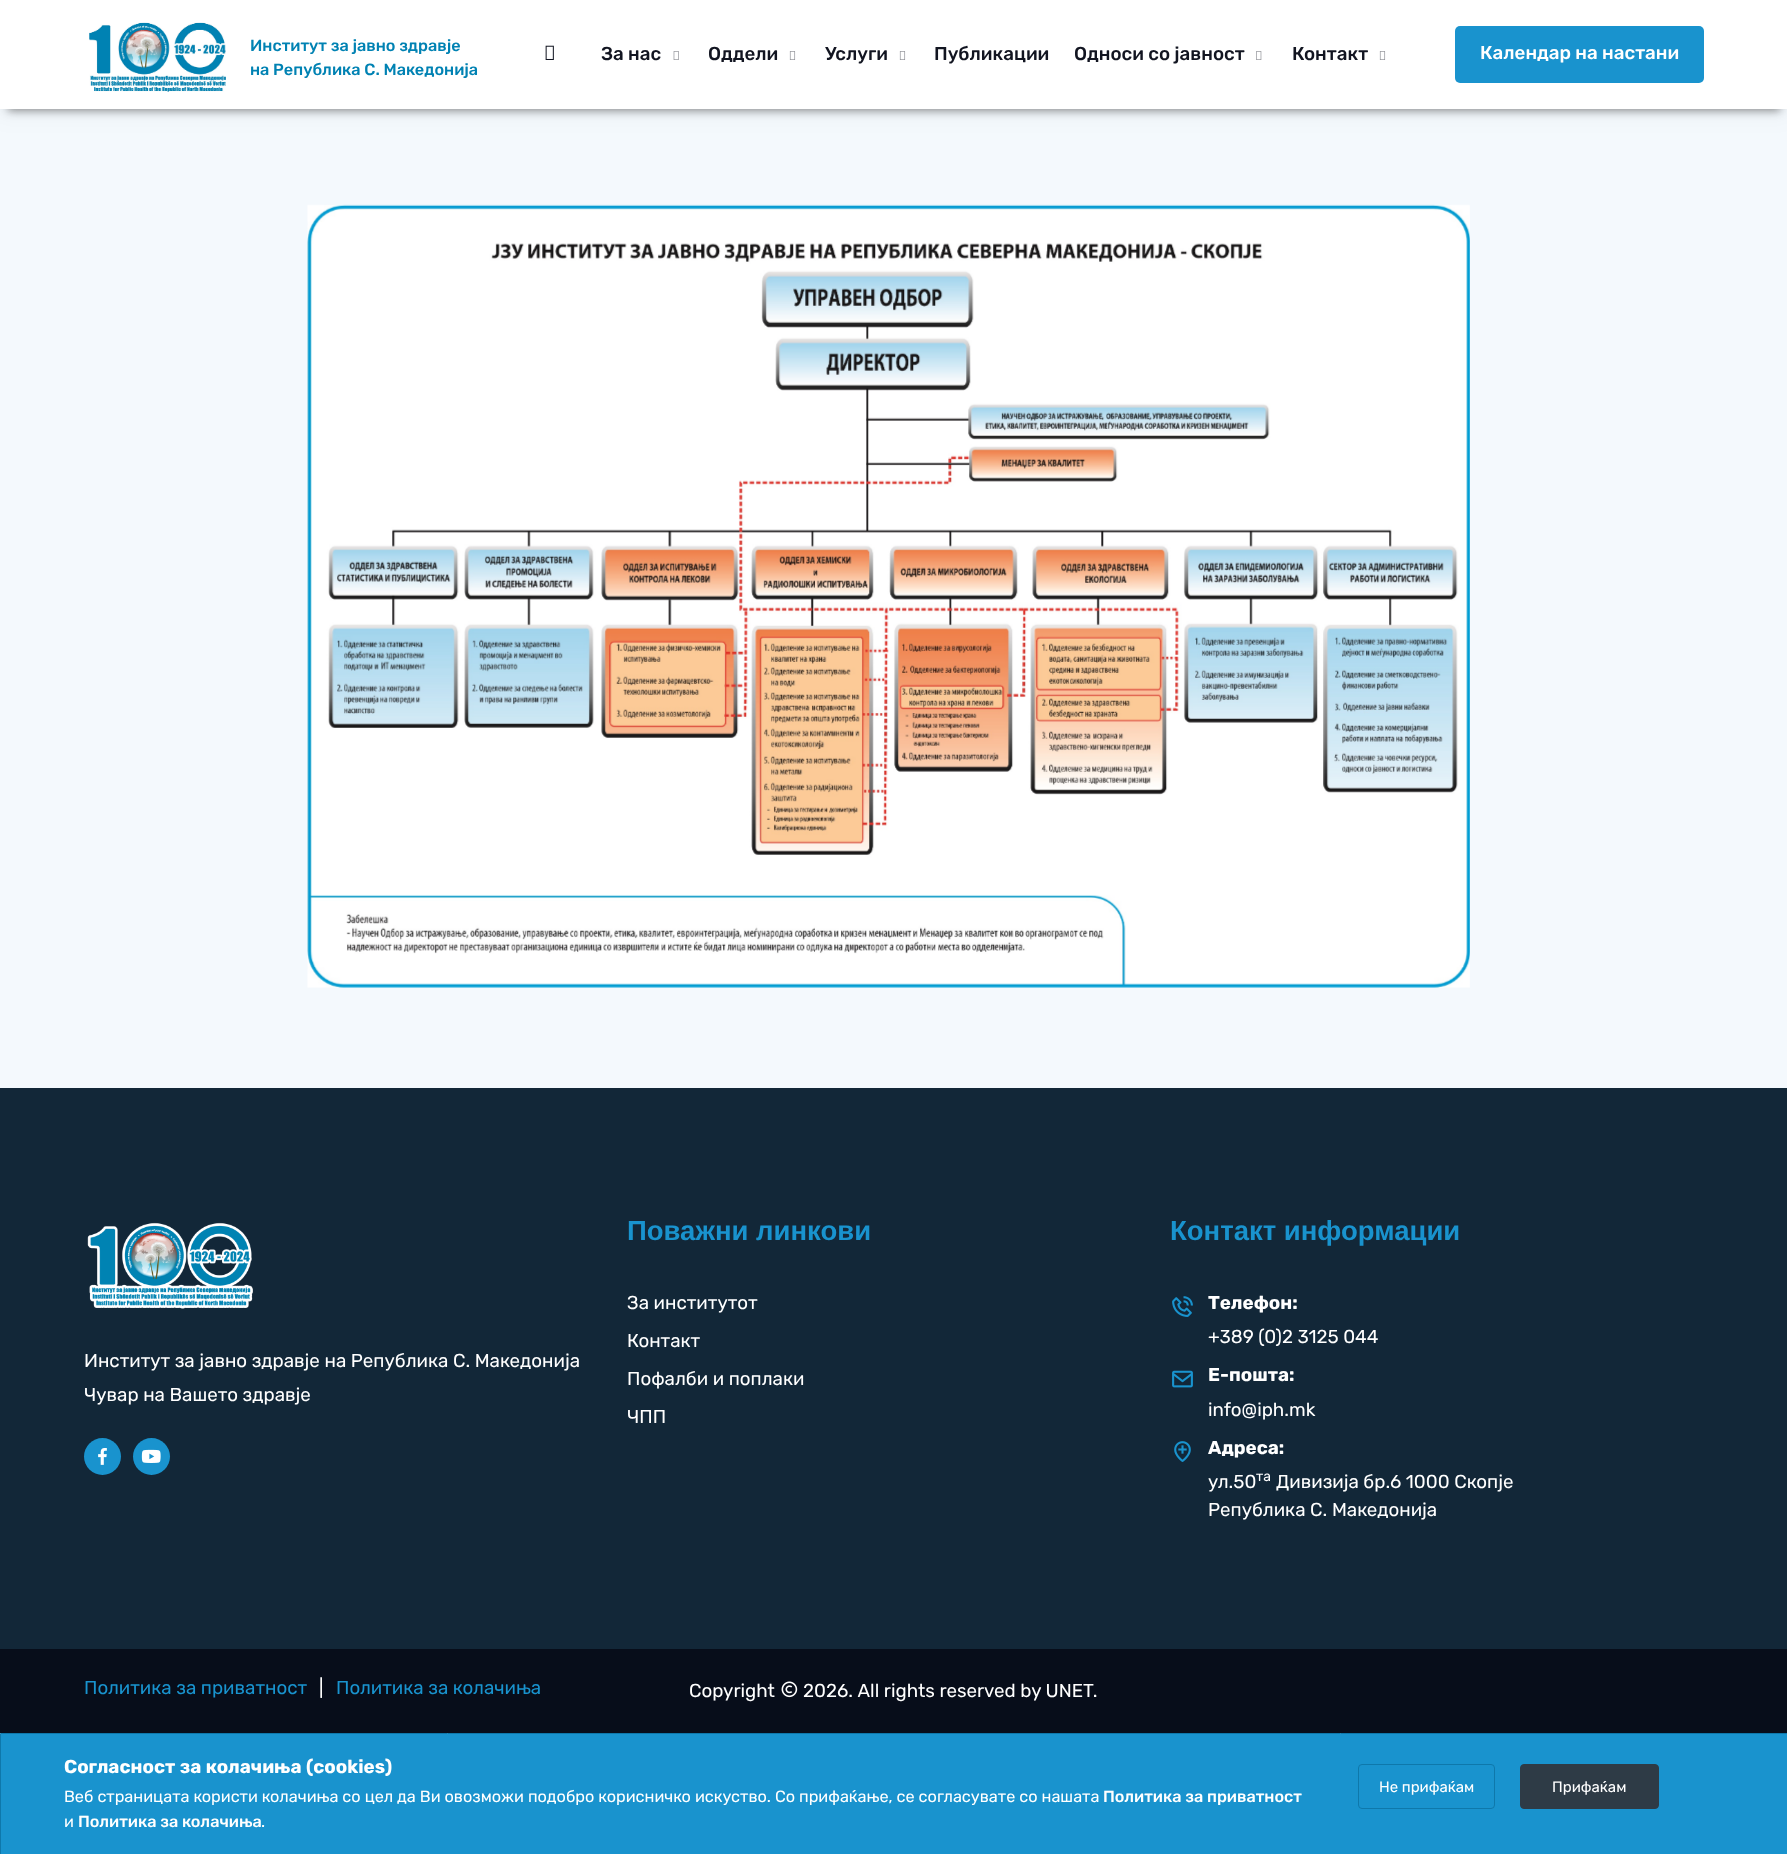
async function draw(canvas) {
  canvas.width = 1787;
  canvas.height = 1854;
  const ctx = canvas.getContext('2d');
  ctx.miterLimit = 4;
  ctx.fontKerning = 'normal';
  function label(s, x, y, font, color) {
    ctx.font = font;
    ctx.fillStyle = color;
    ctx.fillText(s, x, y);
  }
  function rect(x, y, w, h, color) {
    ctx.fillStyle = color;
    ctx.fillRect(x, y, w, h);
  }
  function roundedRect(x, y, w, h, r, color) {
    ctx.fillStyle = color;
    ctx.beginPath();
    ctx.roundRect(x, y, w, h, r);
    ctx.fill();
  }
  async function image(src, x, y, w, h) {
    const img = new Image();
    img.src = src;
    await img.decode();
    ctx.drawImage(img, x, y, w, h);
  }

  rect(0, 0, 1787, 1854, '#f4f9fd');
  ctx.fillStyle = '#00000066';
  ctx.filter = 'blur(4px)';
  ctx.beginPath();
  ctx.rect(8, 18, 1772, 93);
  ctx.fill();
  ctx.filter = 'none';
  ctx.fillStyle = '#0000000d';
  ctx.filter = 'blur(12.5px)';
  ctx.beginPath();
  ctx.rect(-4, -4, 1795, 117);
  ctx.fill();
  ctx.filter = 'none';
  rect(0, 0, 1787, 109, '#fff');
  await image('assets/img1.png', 89, 22, 137, 70);
  label('Институт за јавно здравје', 250, 51, '500 16.25px Rubik', '#0082b3');
  label('на Република С. Македонија', 250, 75, '500 16.25px Rubik', '#0082b3');
  await image('assets/img2.png', 545, 45, 9, 15);
  label('За нас', 601, 60, '500 18.75px Rubik', '#121521');
  await image('assets/img3.png', 673, 51, 6, 9);
  label('Оддели', 708, 60, '500 18.75px Rubik', '#121521');
  await image('assets/img4.png', 789, 51, 7, 9);
  label('Услуги', 825, 60, '500 18.75px Rubik', '#121521');
  await image('assets/img4.png', 899, 51, 7, 9);
  label('Публикации', 934, 60, '500 18.75px Rubik', '#121521');
  label('Односи со јавност', 1074, 60, '500 18.75px Rubik', '#121521');
  await image('assets/img5.png', 1256, 51, 6, 9);
  label('Контакт', 1292, 60, '500 18.75px Rubik', '#121521');
  await image('assets/img4.png', 1379, 51, 7, 9);
  roundedRect(1455, 26, 249, 57, 5, '#1993ce');
  label('Календар на настани', 1480, 59, '500 18.75px Rubik', '#fff');
  await image('assets/img6.png', 307, 204, 1163, 784);
  rect(0, 1088, 1787, 561, '#122738');
  await image('assets/img7.png', 87, 1222, 166, 87);
  label('Институт за јавно здравје на Република С. Македонија', 84, 1367, '18.75px Rubik', '#fff');
  label('Чувар на Вашето здравје', 84, 1401, '18.75px Rubik', '#fff');
  ctx.fillStyle = '#1993ce';
  ctx.beginPath();
  ctx.arc(102.5, 1456.5, 18.5, 0, 2 * Math.PI);
  ctx.fill();
  await image('assets/img8.png', 98, 1448, 9, 17);
  ctx.beginPath();
  ctx.arc(151.5, 1456.5, 18.5, 0, 2 * Math.PI);
  ctx.fill();
  await image('assets/img9.png', 141, 1449, 20, 14);
  label('Поважни линкови', 627, 1240, 'bold 27.5px Liberation Sans', '#1993ce');
  label('За институтот', 627, 1309, '18.75px Rubik', '#fff');
  label('Контакт', 627, 1347, '18.75px Rubik', '#fff');
  label('Пофалби и поплаки', 627, 1385, '18.75px Rubik', '#fff');
  label('ЧПП', 627, 1423, '18.75px Rubik', '#fff');
  label('Контакт информации', 1170, 1240, 'bold 27.5px Liberation Sans', '#1993ce');
  await image('assets/img10.png', 1172, 1296, 21, 21);
  label('Телефон:', 1208, 1309, 'bold 18.75px Rubik', '#fff');
  label('+389 (0)2 3125 044', 1208, 1343, '18.75px Rubik', '#fff');
  await image('assets/img11.png', 1172, 1370, 21, 18);
  label('Е-пошта:', 1208, 1381, 'bold 18.75px Rubik', '#fff');
  label('info@iph.mk', 1208, 1416, '18.75px Rubik', '#fff');
  await image('assets/img12.png', 1174, 1441, 17, 21);
  label('Адреса:', 1208, 1454, 'bold 18.75px Rubik', '#fff');
  label('ул.50', 1208, 1488, '18.75px Rubik', '#fff');
  label('та', 1256, 1481, '14px Rubik', '#fff');
  label('Дивизија бр.6 1000 Скопје', 1276, 1488, '18.75px Rubik', '#fff');
  label('Република С. Македонија', 1208, 1516, '18.75px Rubik', '#fff');
  rect(0, 1649, 1787, 84, '#070d1a');
  label('Политика за приватност', 84, 1694, '18.75px Rubik', '#1993ce');
  label('|', 319, 1694, '18.75px Rubik', '#fff');
  label('Политика за колачиња', 336, 1694, '18.75px Rubik', '#1993ce');
  label('Copyright', 689, 1697, '18.75px Rubik', '#fff');
  await image('assets/img13.png', 781, 1681, 17, 17);
  label('2026. All rights reserved by UNET.', 803, 1697, '18.75px Rubik', '#fff');
  ctx.fillStyle = '#1993ce';
  ctx.beginPath();
  ctx.rect(0.5, 1733.5, 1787, 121);
  ctx.fill();
  ctx.strokeStyle = '#0e78ab';
  ctx.stroke();
  ctx.wordSpacing = '0.5px';
  label('Согласност за колачиња (cookies)', 64, 1773, 'bold 18.75px Rubik', '#fff');
  ctx.wordSpacing = '0px';
  label('Веб страницата користи колачиња со цел да Ви овозможи подобро корисничко искуство. Со прифаќање, се согласувате со нашата', 64, 1802, '16.25px Rubik', '#fff');
  label('Политика за приватност', 1103, 1802, '500 16.25px Rubik', '#fff');
  label('и', 64, 1827, '16.25px Rubik', '#fff');
  label('Политика за колачиња', 78, 1827, '500 16.25px Rubik', '#fff');
  label('.', 261, 1827, '16.25px Rubik', '#fff');
  ctx.beginPath();
  ctx.roundRect(1358.5, 1764.5, 136, 44, 3.5);
  ctx.stroke();
  label('Не прифаќам', 1379, 1792, '15px Rubik', '#fff');
  ctx.fillStyle = '#2e3b46';
  ctx.beginPath();
  ctx.roundRect(1520.5, 1764.5, 138, 44, 3.5);
  ctx.fill();
  ctx.strokeStyle = '#2e3b46';
  ctx.stroke();
  label('Прифаќам', 1552, 1792, '15px Rubik', '#fff');
}

draw(document.querySelector('canvas'));
